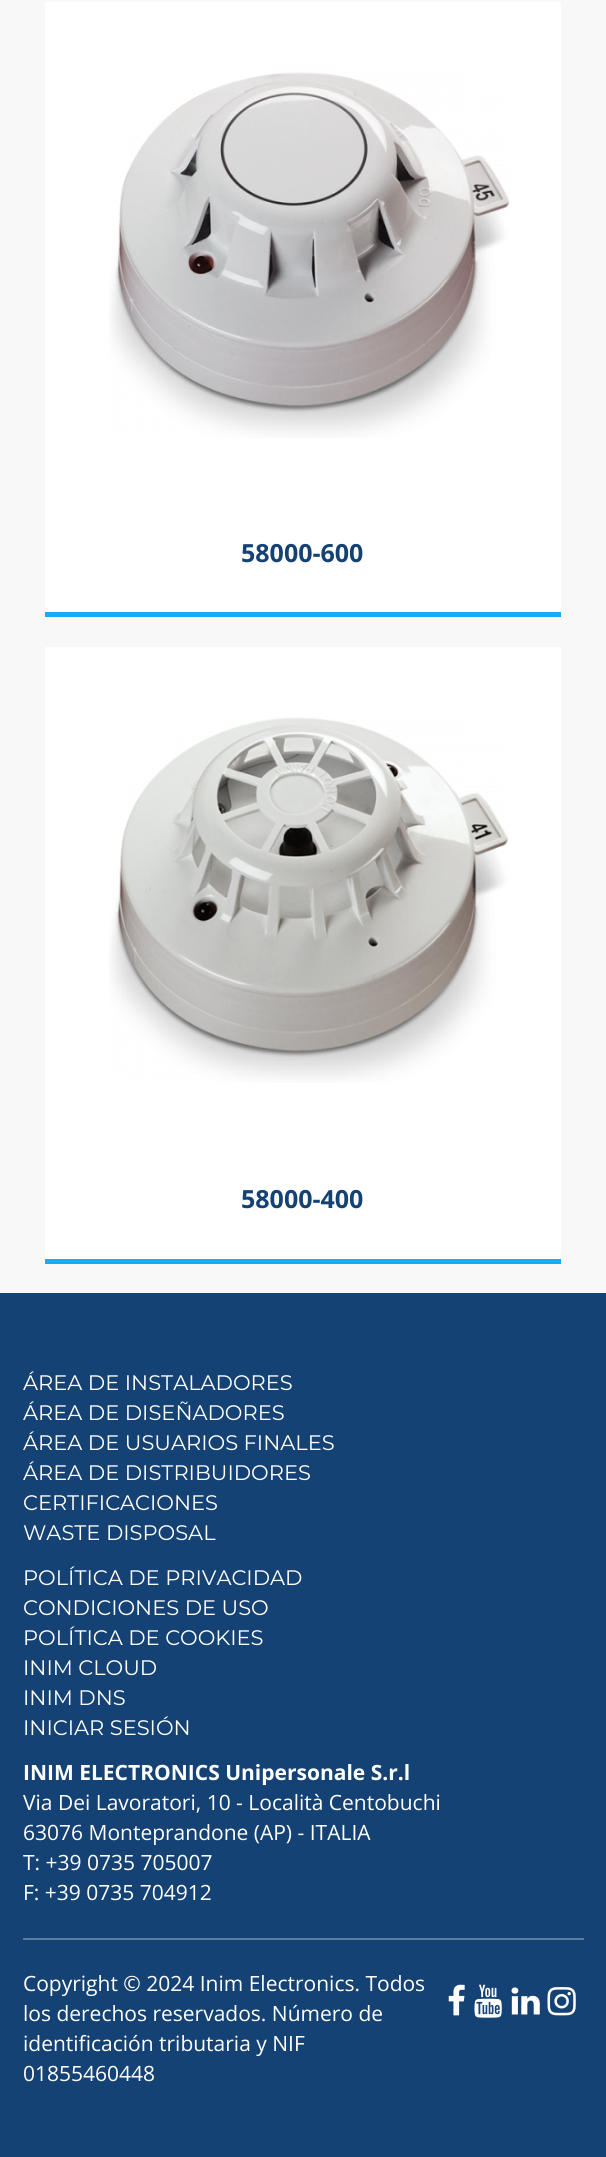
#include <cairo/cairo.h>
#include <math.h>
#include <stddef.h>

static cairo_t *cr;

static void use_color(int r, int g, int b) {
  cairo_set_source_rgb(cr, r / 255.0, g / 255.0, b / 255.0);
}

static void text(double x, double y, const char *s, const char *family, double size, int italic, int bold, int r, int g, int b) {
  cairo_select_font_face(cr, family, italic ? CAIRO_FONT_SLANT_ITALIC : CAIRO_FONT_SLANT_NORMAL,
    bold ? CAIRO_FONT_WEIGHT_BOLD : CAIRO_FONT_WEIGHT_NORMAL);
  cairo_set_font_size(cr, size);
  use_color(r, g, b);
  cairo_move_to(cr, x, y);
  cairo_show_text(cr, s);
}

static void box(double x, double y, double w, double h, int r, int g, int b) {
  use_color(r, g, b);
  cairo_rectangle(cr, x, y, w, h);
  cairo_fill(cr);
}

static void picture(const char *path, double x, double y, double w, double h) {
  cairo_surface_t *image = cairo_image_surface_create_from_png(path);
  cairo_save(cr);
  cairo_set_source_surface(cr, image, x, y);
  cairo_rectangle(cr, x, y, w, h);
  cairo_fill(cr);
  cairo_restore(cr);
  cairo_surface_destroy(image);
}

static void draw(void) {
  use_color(248, 248, 248);
  cairo_paint(cr);
  box(45, 2, 516, 610, 255, 255, 255);
  box(45, 612, 516, 5, 25, 170, 246);
  picture("img_01.png", 109, 72, 401, 366);
  box(45, 647, 516, 612, 255, 255, 255);
  box(45, 1259, 516, 5, 25, 170, 246);
  picture("img_02.png", 109, 717, 400, 366);
  box(0, 1293, 606, 864, 21, 66, 117);
  box(23, 1938, 561, 2, 92, 123, 159);
  picture("img_03.png", 448, 1984, 17, 32);
  picture("img_04.png", 474, 1984, 28, 34);
  picture("img_05.png", 511, 1987, 29, 28);
  picture("img_06.png", 547, 1987, 29, 29);
  text(241, 562, "58000-600", "Open Sans", 25, 0, 1, 21, 66, 117);
  text(241, 1208, "58000-400", "Open Sans", 25, 0, 1, 21, 66, 117);
  text(23, 1390, "ÁREA DE INSTALADORES", "Montserrat", 21, 0, 0, 255, 255, 255);
  text(23, 1420, "ÁREA DE DISEÑADORES", "Montserrat", 21, 0, 0, 255, 255, 255);
  text(23, 1450, "ÁREA DE USUARIOS FINALES", "Montserrat", 21, 0, 0, 255, 255, 255);
  text(23, 1480, "ÁREA DE DISTRIBUIDORES", "Montserrat", 21, 0, 0, 255, 255, 255);
  text(23, 1510, "CERTIFICACIONES", "Montserrat", 21, 0, 0, 255, 255, 255);
  text(23, 1540, "WASTE DISPOSAL", "Montserrat", 21, 0, 0, 255, 255, 255);
  text(23, 1585, "POLÍTICA DE PRIVACIDAD", "Montserrat", 21, 0, 0, 255, 255, 255);
  text(23, 1615, "CONDICIONES DE USO", "Montserrat", 21, 0, 0, 255, 255, 255);
  text(23, 1645, "POLÍTICA DE COOKIES", "Montserrat", 21, 0, 0, 255, 255, 255);
  text(23, 1675, "INIM CLOUD", "Montserrat", 21, 0, 0, 255, 255, 255);
  text(23, 1705, "INIM DNS", "Montserrat", 21, 0, 0, 255, 255, 255);
  text(23, 1735, "INICIAR SESIÓN", "Montserrat", 21, 0, 0, 255, 255, 255);
  text(23, 1780, "INIM ELECTRONICS Unipersonale S.r.l", "Open Sans", 21, 0, 1, 255, 255, 255);
  text(23, 1810, "Via Dei Lavoratori, 10 - Località Centobuchi", "Open Sans", 21, 0, 0, 255, 255, 255);
  text(23, 1840, "63076 Monteprandone (AP) - ITALIA", "Open Sans", 21, 0, 0, 255, 255, 255);
  text(23, 1870, "T: +39 0735 705007", "Open Sans", 21, 0, 0, 255, 255, 255);
  text(23, 1900, "F: +39 0735 704912", "Open Sans", 21, 0, 0, 255, 255, 255);
  text(23, 1991, "Copyright © 2024 Inim Electronics. Todos", "Open Sans", 21, 0, 0, 255, 255, 255);
  text(23, 2021, "los derechos reservados. Número de", "Open Sans", 21, 0, 0, 255, 255, 255);
  text(23, 2051, "identificación tributaria y NIF", "Open Sans", 21, 0, 0, 255, 255, 255);
  text(23, 2081, "01855460448", "Open Sans", 21, 0, 0, 255, 255, 255);
}

int main(void) {
  cairo_surface_t *surface = cairo_image_surface_create(CAIRO_FORMAT_RGB24, 606, 2157);
  cr = cairo_create(surface);
  cairo_font_options_t *options = cairo_font_options_create();
  cairo_font_options_set_hint_metrics(options, CAIRO_HINT_METRICS_OFF);
  cairo_font_options_set_hint_style(options, CAIRO_HINT_STYLE_NONE);
  cairo_set_font_options(cr, options);
  cairo_set_miter_limit(cr, 4);
  draw();
  cairo_surface_write_to_png(surface, "out.png");
  cairo_font_options_destroy(options);
  cairo_destroy(cr);
  cairo_surface_destroy(surface);
  return 0;
}
